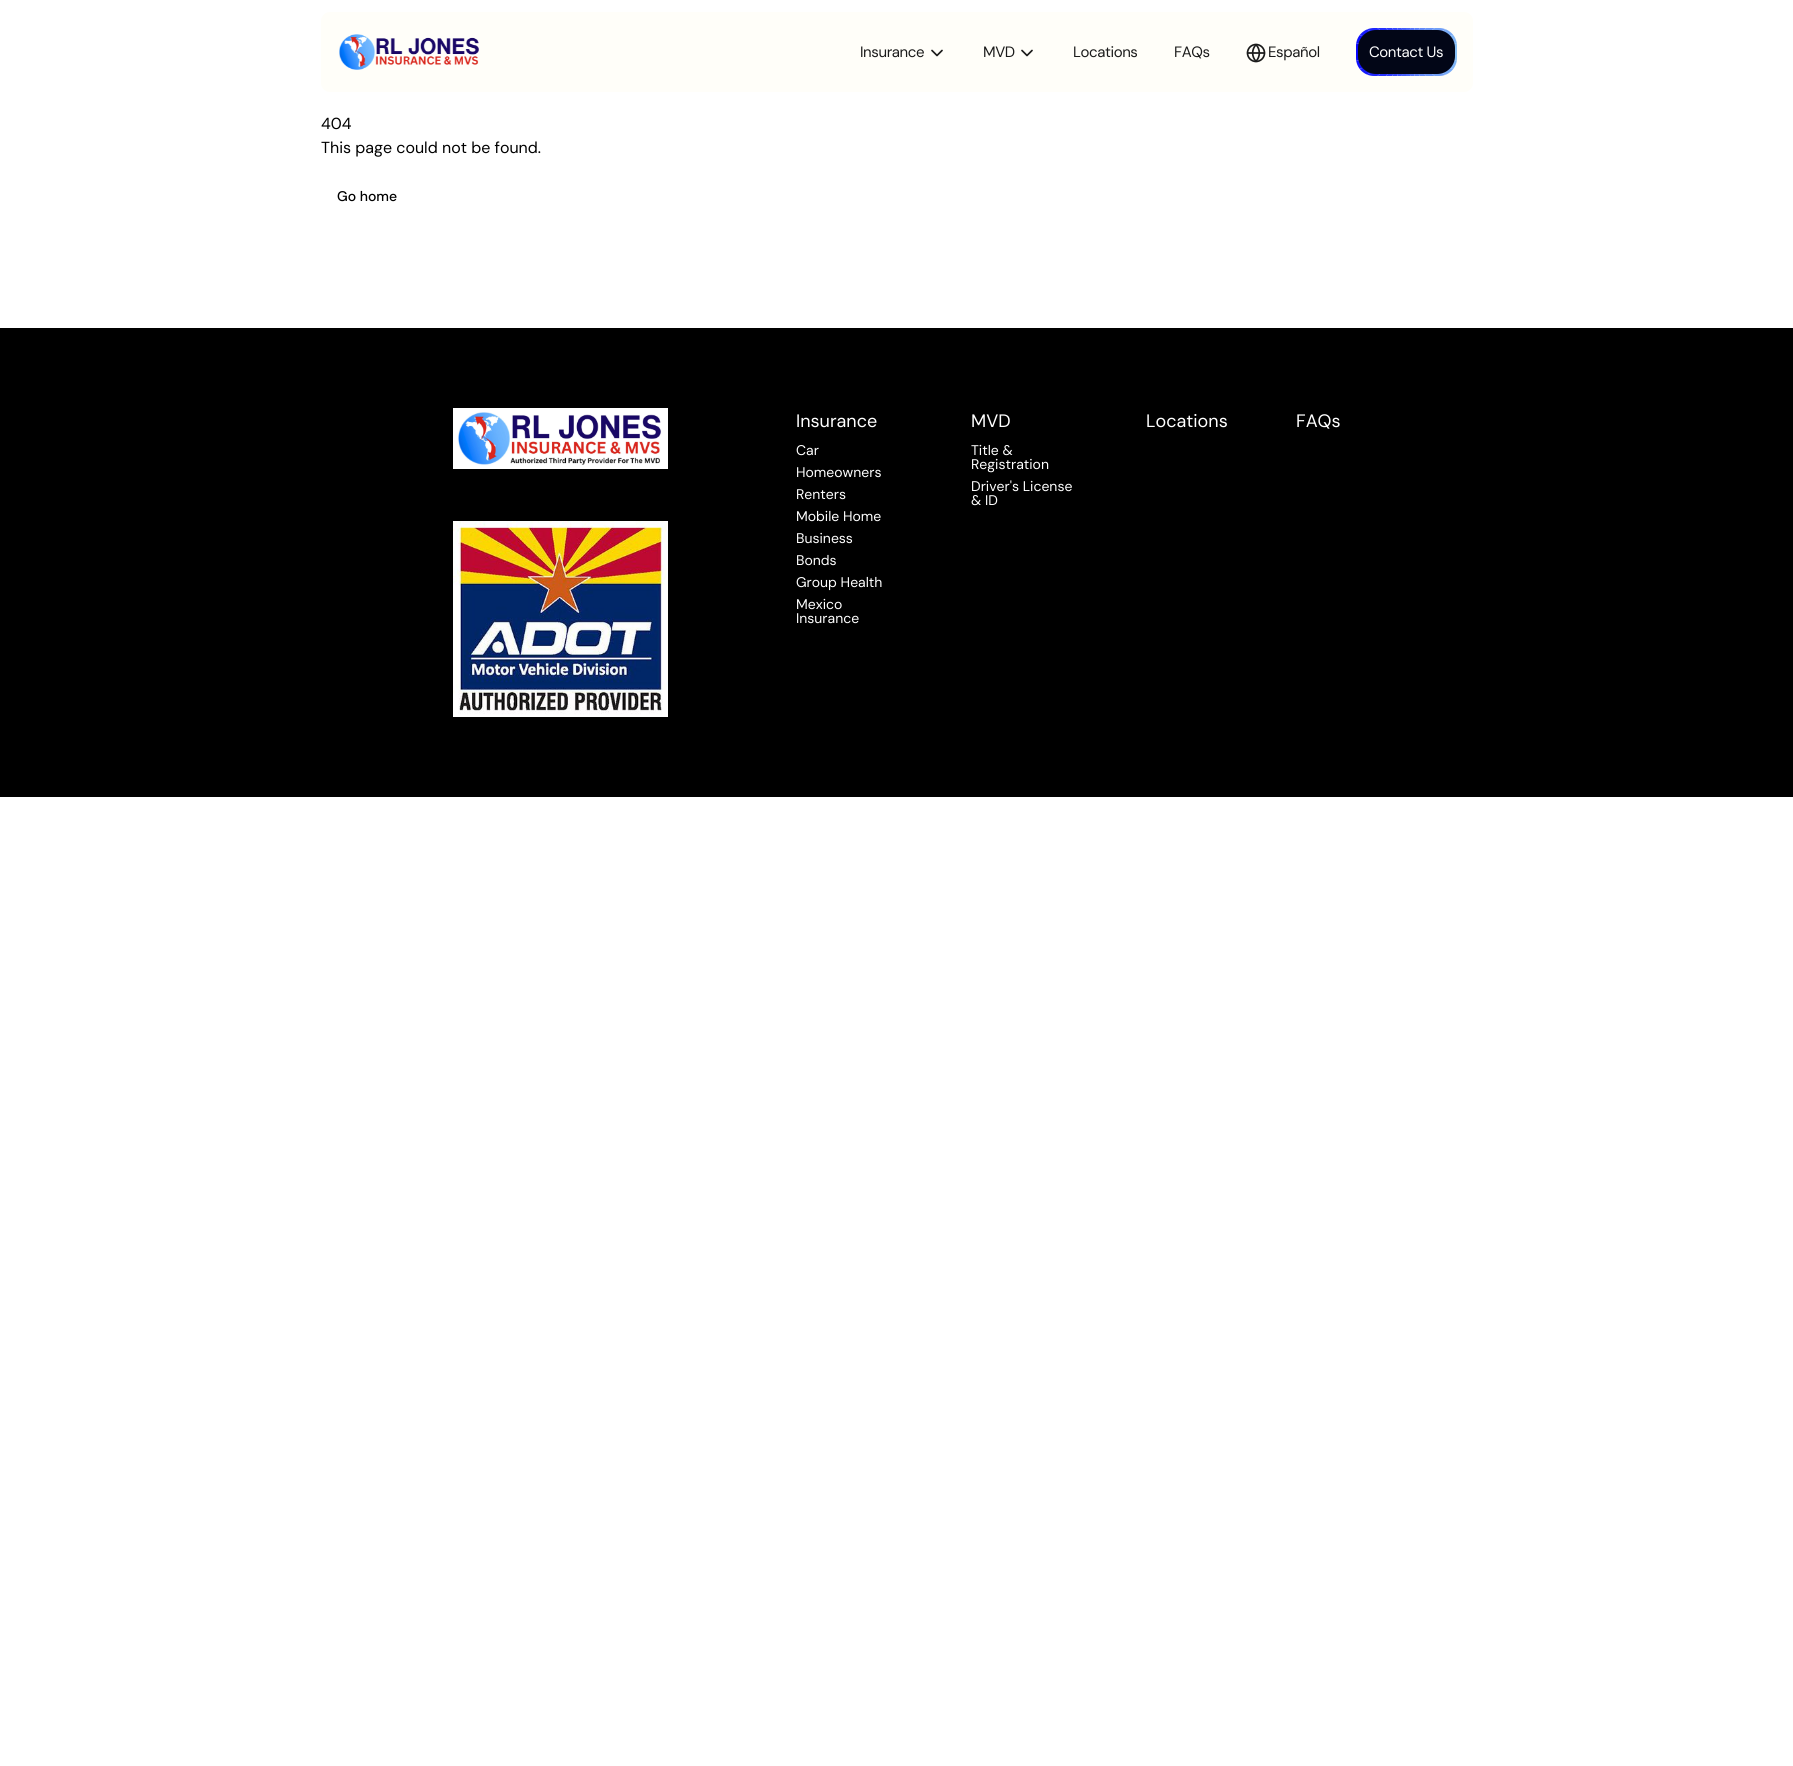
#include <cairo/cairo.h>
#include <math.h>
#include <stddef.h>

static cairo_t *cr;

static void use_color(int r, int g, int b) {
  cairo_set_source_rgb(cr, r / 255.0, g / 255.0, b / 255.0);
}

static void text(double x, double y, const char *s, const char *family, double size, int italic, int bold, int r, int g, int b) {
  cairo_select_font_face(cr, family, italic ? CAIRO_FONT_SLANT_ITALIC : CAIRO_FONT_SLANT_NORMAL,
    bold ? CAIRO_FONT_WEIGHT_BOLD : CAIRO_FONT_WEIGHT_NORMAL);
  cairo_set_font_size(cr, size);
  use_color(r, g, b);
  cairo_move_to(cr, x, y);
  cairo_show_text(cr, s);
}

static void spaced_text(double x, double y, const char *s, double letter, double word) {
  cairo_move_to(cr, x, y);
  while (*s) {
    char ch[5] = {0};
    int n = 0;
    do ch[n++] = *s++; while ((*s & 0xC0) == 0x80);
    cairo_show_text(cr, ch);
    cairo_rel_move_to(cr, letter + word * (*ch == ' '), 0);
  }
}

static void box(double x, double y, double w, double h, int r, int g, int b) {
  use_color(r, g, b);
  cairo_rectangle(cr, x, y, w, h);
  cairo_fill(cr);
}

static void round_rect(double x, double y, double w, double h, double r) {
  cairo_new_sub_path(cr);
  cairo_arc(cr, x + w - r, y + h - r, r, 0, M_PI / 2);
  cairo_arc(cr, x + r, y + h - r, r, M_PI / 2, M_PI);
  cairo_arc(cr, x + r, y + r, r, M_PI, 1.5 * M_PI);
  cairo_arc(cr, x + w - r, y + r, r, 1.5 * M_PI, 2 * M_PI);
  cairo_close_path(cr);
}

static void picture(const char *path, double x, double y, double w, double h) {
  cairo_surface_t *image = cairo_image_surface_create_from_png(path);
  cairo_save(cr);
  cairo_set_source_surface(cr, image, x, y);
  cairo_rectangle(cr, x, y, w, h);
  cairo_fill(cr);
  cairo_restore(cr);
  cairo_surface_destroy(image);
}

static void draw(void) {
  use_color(255, 255, 255);
  cairo_paint(cr);
  use_color(255, 254, 249);
  round_rect(321, 12, 1152, 80, 9);
  cairo_fill(cr);
  picture("img_01.png", 339, 34, 141, 36);
  cairo_new_path(cr);
  cairo_move_to(cr, 932, 50.5);
  cairo_line_to(cr, 937, 55.5);
  cairo_line_to(cr, 942, 50.5);
  use_color(27, 27, 27);
  cairo_set_line_width(cr, 1.7);
  cairo_set_line_cap(cr, CAIRO_LINE_CAP_ROUND);
  cairo_set_line_join(cr, CAIRO_LINE_JOIN_ROUND);
  cairo_stroke(cr);
  cairo_new_path(cr);
  cairo_move_to(cr, 1022, 50.5);
  cairo_line_to(cr, 1027, 55.5);
  cairo_line_to(cr, 1032, 50.5);
  cairo_stroke(cr);
  picture("img_02.png", 1246, 43, 20, 20);
  picture("img_03.png", 1356, 28, 101, 48);
  use_color(2, 6, 23);
  round_rect(1358, 30, 97, 44, 18);
  cairo_fill(cr);
  box(0, 328, 1793, 469, 0, 0, 0);
  picture("img_04.png", 453, 408, 215, 61);
  picture("img_05.png", 453, 521, 215, 196);
  cairo_select_font_face(cr, "DM Sans", CAIRO_FONT_SLANT_NORMAL, CAIRO_FONT_WEIGHT_NORMAL);
  cairo_set_font_size(cr, 15);
  use_color(27, 27, 27);
  spaced_text(860, 57, "Insurance", -0.4, 0);
  spaced_text(983, 57, "MVD", -0.4, 0);
  spaced_text(1073, 57, "Locations", -0.4, 0);
  spaced_text(1174, 57, "FAQs", -0.4, 0);
  spaced_text(1268, 57, "Español", -0.4, 0);
  use_color(255, 255, 255);
  spaced_text(1369, 57, "Contact Us", -0.4, 0);
  text(321, 129, "404", "DM Sans", 16, 0, 0, 0, 0, 0);
  text(321, 153, "This page could not be found.", "DM Sans", 16, 0, 0, 0, 0, 0);
  text(337, 201, "Go home", "DM Sans Medium", 14, 0, 0, 0, 0, 0);
  text(796, 427, "Insurance", "DM Sans", 18, 0, 0, 255, 255, 255);
  text(796, 455, "Car", "DM Sans", 14, 0, 0, 255, 255, 255);
  text(796, 477, "Homeowners", "DM Sans", 14, 0, 0, 255, 255, 255);
  text(796, 499, "Renters", "DM Sans", 14, 0, 0, 255, 255, 255);
  text(796, 521, "Mobile Home", "DM Sans", 14, 0, 0, 255, 255, 255);
  text(796, 543, "Business", "DM Sans", 14, 0, 0, 255, 255, 255);
  text(796, 565, "Bonds", "DM Sans", 14, 0, 0, 255, 255, 255);
  text(796, 587, "Group Health", "DM Sans", 14, 0, 0, 255, 255, 255);
  text(796, 609, "Mexico", "DM Sans", 14, 0, 0, 255, 255, 255);
  text(796, 623, "Insurance", "DM Sans", 14, 0, 0, 255, 255, 255);
  text(971, 427, "MVD", "DM Sans", 18, 0, 0, 255, 255, 255);
  text(971, 455, "Title &", "DM Sans", 14, 0, 0, 255, 255, 255);
  text(971, 469, "Registration", "DM Sans", 14, 0, 0, 255, 255, 255);
  text(971, 491, "Driver's License", "DM Sans", 14, 0, 0, 255, 255, 255);
  text(971, 505, "& ID", "DM Sans", 14, 0, 0, 255, 255, 255);
  text(1146, 427, "Locations", "DM Sans", 18, 0, 0, 255, 255, 255);
  text(1296, 427, "FAQs", "DM Sans", 18, 0, 0, 255, 255, 255);
}

int main(void) {
  cairo_surface_t *surface = cairo_image_surface_create(CAIRO_FORMAT_RGB24, 1793, 1766);
  cr = cairo_create(surface);
  cairo_font_options_t *options = cairo_font_options_create();
  cairo_font_options_set_hint_metrics(options, CAIRO_HINT_METRICS_OFF);
  cairo_font_options_set_hint_style(options, CAIRO_HINT_STYLE_NONE);
  cairo_set_font_options(cr, options);
  cairo_set_miter_limit(cr, 4);
  draw();
  cairo_surface_write_to_png(surface, "out.png");
  cairo_font_options_destroy(options);
  cairo_destroy(cr);
  cairo_surface_destroy(surface);
  return 0;
}
